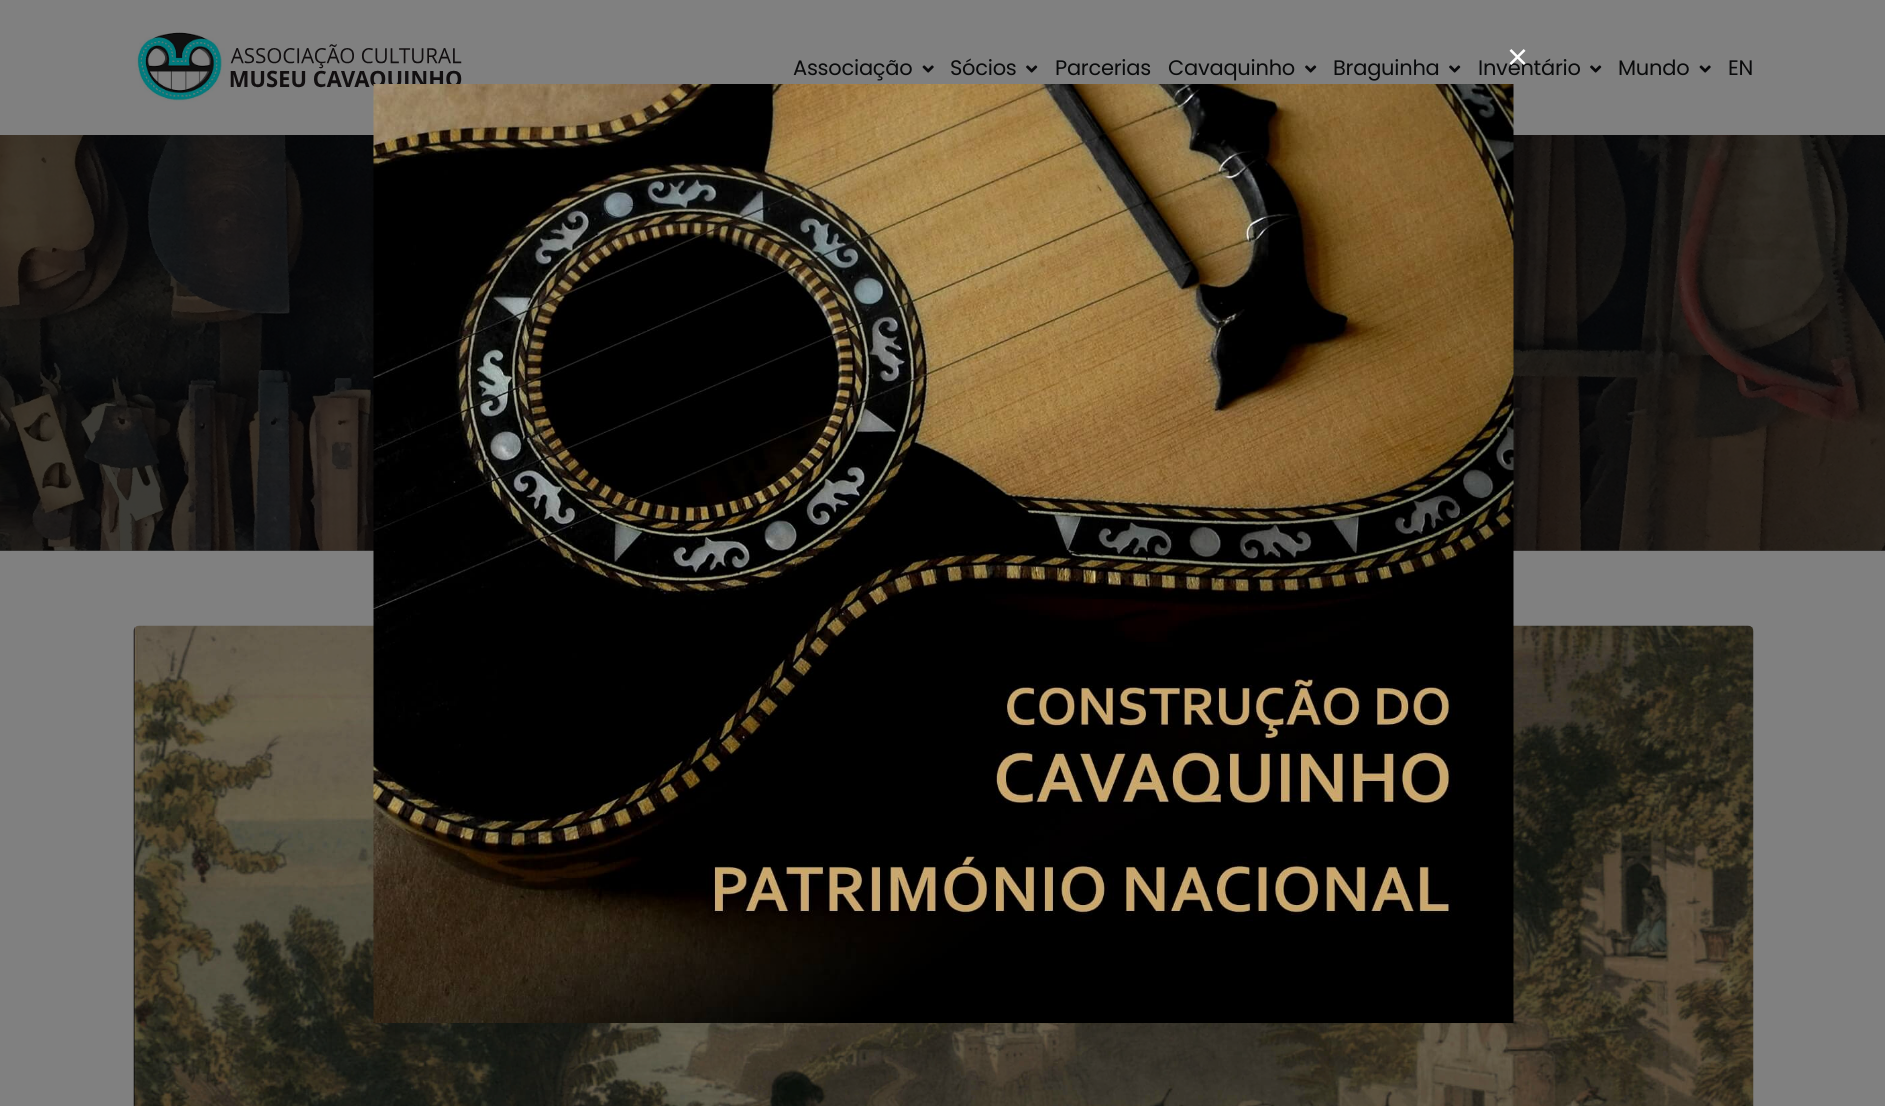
#include <cairo/cairo.h>
#include <math.h>
#include <stddef.h>

static cairo_t *cr;

static void use_color(int r, int g, int b) {
  cairo_set_source_rgb(cr, r / 255.0, g / 255.0, b / 255.0);
}

static void text(double x, double y, const char *s, const char *family, double size, int italic, int bold, int r, int g, int b) {
  cairo_select_font_face(cr, family, italic ? CAIRO_FONT_SLANT_ITALIC : CAIRO_FONT_SLANT_NORMAL,
    bold ? CAIRO_FONT_WEIGHT_BOLD : CAIRO_FONT_WEIGHT_NORMAL);
  cairo_set_font_size(cr, size);
  use_color(r, g, b);
  cairo_move_to(cr, x, y);
  cairo_show_text(cr, s);
}

static void spaced_text(double x, double y, const char *s, double letter, double word) {
  cairo_move_to(cr, x, y);
  while (*s) {
    char ch[5] = {0};
    int n = 0;
    do ch[n++] = *s++; while ((*s & 0xC0) == 0x80);
    cairo_show_text(cr, ch);
    cairo_rel_move_to(cr, letter + word * (*ch == ' '), 0);
  }
}

static void box(double x, double y, double w, double h, int r, int g, int b) {
  use_color(r, g, b);
  cairo_rectangle(cr, x, y, w, h);
  cairo_fill(cr);
}

static void picture(const char *path, double x, double y, double w, double h) {
  cairo_surface_t *image = cairo_image_surface_create_from_png(path);
  cairo_save(cr);
  cairo_set_source_surface(cr, image, x, y);
  cairo_rectangle(cr, x, y, w, h);
  cairo_fill(cr);
  cairo_restore(cr);
  cairo_surface_destroy(image);
}

static void draw(void) {
  use_color(128, 128, 128);
  cairo_paint(cr);
  box(0, 550, 1885, 1, 64, 64, 64);
  picture("img_02.png", 135, 32, 327, 70);
  picture("img_05.png", 0, 135, 1885, 416);
  picture("img_06.png", 133, 625, 1621, 481);
  picture("img_01.png", 373, 84, 1141, 939);
  picture("img_03.png", 922, 65, 12, 8);
  picture("img_04.png", 1026, 65, 12, 8);
  picture("img_04.png", 1305, 65, 12, 8);
  picture("img_04.png", 1449, 65, 12, 8);
  picture("img_04.png", 1590, 65, 12, 8);
  picture("img_03.png", 1699, 65, 12, 8);
  cairo_select_font_face(cr, "Poppins", CAIRO_FONT_SLANT_NORMAL, CAIRO_FONT_WEIGHT_NORMAL);
  cairo_set_font_size(cr, 21);
  use_color(10, 11, 12);
  spaced_text(793, 75, "Associação", -0.25, 0);
  spaced_text(950, 75, "Sócios", -0.25, 0);
  spaced_text(1055, 75, "Parcerias", -0.25, 0);
  spaced_text(1168, 75, "Cavaquinho", -0.25, 0);
  spaced_text(1333, 75, "Braguinha", -0.25, 0);
  spaced_text(1478, 75, "Inventário", -0.25, 0);
  text(1507, 69, "×", "Liberation Sans", 36, 0, 0, 255, 255, 255);
  cairo_select_font_face(cr, "Poppins", CAIRO_FONT_SLANT_NORMAL, CAIRO_FONT_WEIGHT_NORMAL);
  cairo_set_font_size(cr, 21);
  use_color(10, 11, 12);
  spaced_text(1618, 75, "Mundo", -0.25, 0);
  spaced_text(1728, 75, "EN", -0.25, 0);
}

int main(void) {
  cairo_surface_t *surface = cairo_image_surface_create(CAIRO_FORMAT_RGB24, 1885, 1106);
  cr = cairo_create(surface);
  cairo_font_options_t *options = cairo_font_options_create();
  cairo_font_options_set_hint_metrics(options, CAIRO_HINT_METRICS_OFF);
  cairo_font_options_set_hint_style(options, CAIRO_HINT_STYLE_NONE);
  cairo_set_font_options(cr, options);
  cairo_set_miter_limit(cr, 4);
  draw();
  cairo_surface_write_to_png(surface, "out.png");
  cairo_font_options_destroy(options);
  cairo_destroy(cr);
  cairo_surface_destroy(surface);
  return 0;
}
